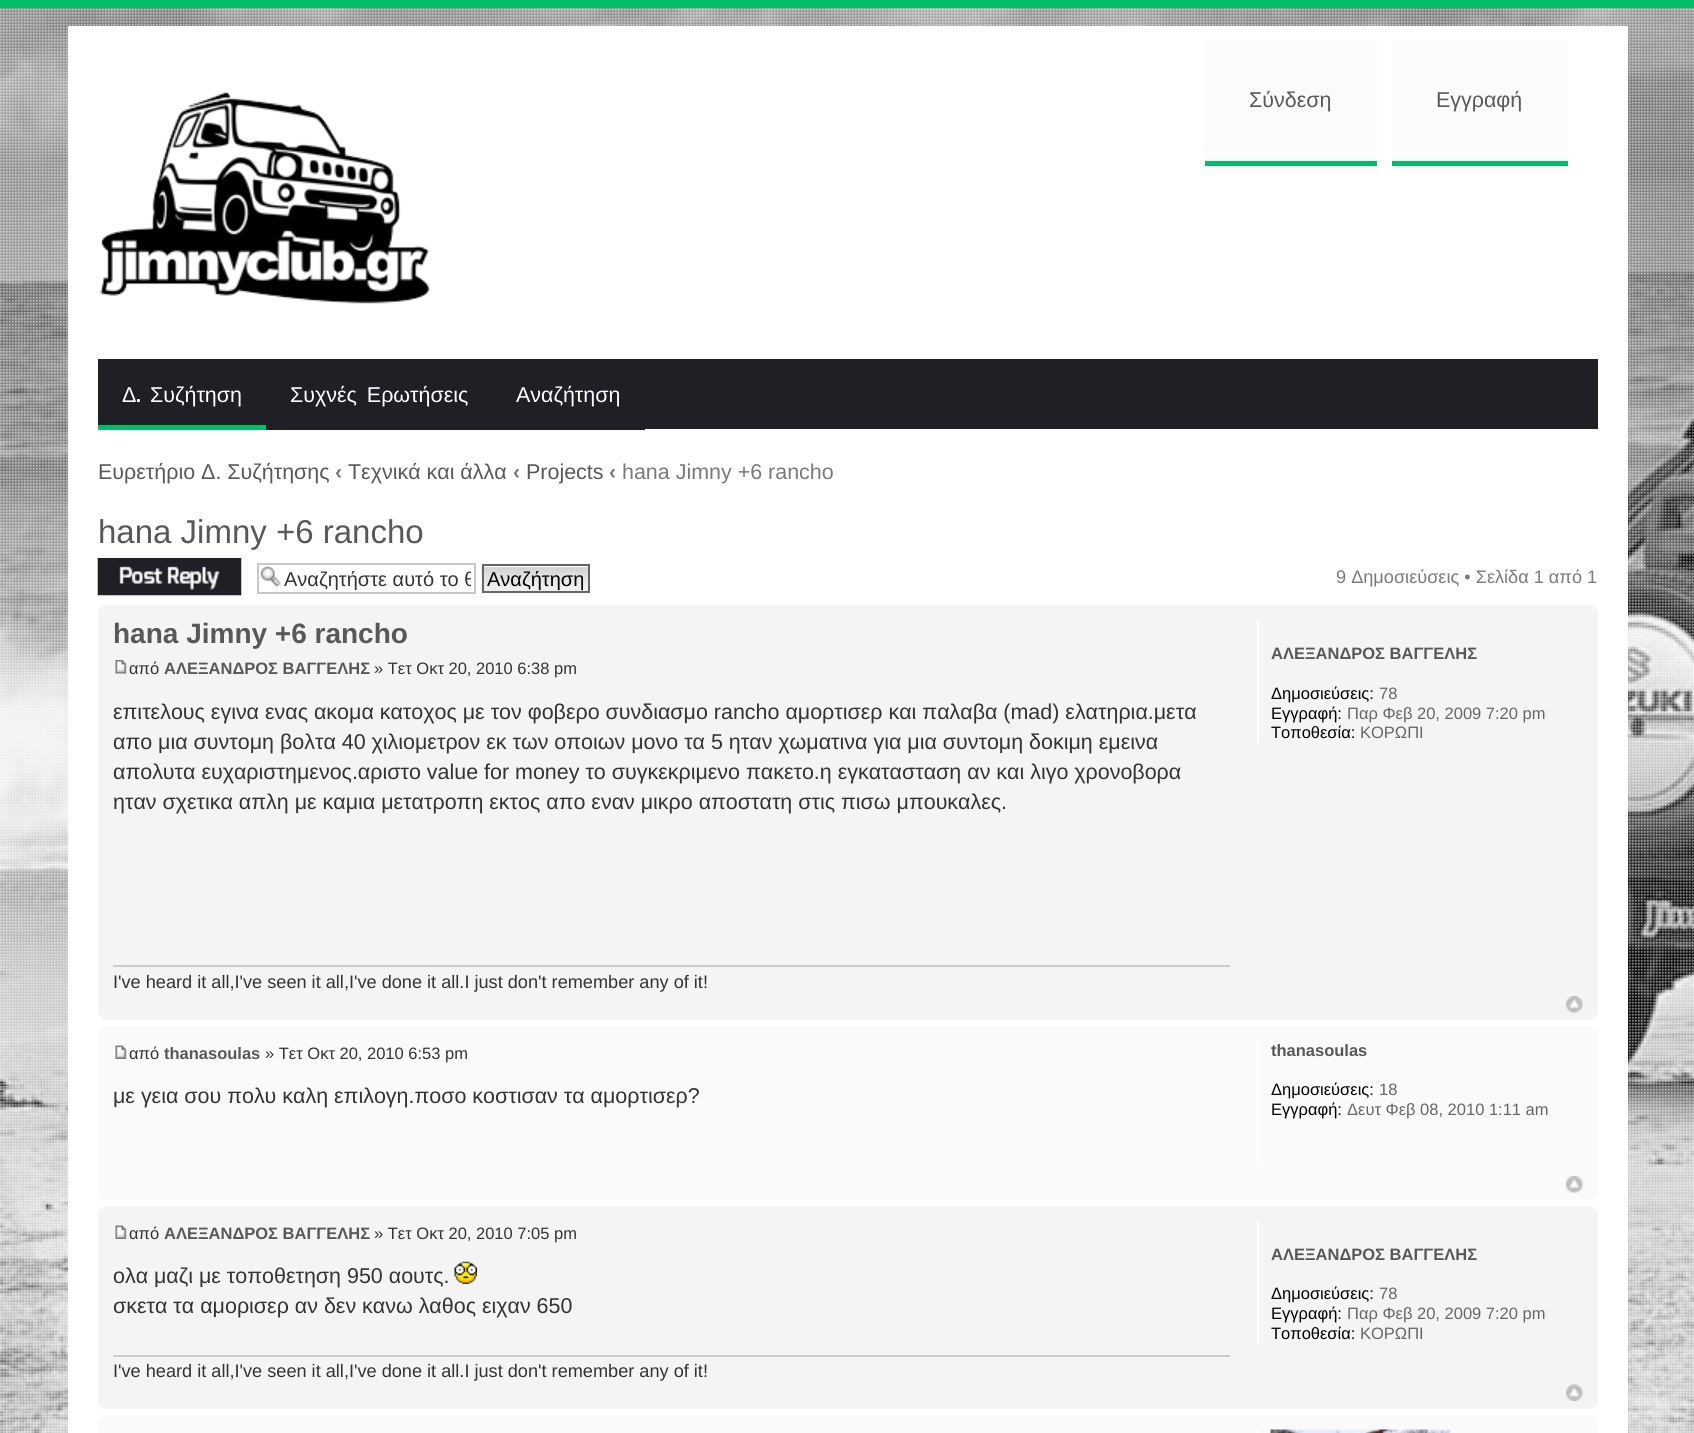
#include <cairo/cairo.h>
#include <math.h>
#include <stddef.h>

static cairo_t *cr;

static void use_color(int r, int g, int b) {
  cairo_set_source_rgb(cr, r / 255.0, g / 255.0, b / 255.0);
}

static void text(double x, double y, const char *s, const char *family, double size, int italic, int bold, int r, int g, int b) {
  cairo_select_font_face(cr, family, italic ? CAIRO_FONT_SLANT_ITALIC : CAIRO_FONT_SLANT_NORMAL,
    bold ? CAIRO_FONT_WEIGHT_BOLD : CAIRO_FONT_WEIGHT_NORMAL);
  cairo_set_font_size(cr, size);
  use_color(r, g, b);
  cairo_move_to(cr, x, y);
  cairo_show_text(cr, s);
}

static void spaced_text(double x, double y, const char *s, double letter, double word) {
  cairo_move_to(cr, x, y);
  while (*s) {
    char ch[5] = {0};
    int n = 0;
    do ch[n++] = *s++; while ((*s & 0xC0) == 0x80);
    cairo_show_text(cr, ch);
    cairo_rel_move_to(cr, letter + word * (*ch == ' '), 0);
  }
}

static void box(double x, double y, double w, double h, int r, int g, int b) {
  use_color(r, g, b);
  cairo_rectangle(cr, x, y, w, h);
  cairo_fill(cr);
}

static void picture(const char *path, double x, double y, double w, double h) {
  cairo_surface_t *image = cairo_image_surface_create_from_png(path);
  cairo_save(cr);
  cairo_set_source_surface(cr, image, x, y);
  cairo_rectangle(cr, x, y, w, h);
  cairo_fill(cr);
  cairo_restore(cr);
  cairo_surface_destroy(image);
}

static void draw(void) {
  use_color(255, 255, 255);
  cairo_paint(cr);
  picture("img_01.png", 0, 8, 1694, 1425);
  picture("img_02.png", 0, 8, 1694, 1425);
  box(0, 0, 1694, 8, 1, 189, 105);
  box(68, 26, 1560, 1407, 255, 255, 255);
  picture("img_03.png", 100, 91, 330, 213);
  box(1205, 41, 172, 120, 251, 251, 251);
  box(1205, 161, 172, 5, 1, 189, 105);
  box(1392, 41, 176, 120, 251, 251, 251);
  box(1392, 161, 176, 5, 1, 189, 105);
  box(98, 359, 1500, 70, 30, 32, 37);
  box(98, 425, 168, 5, 1, 189, 105);
  box(266, 429, 379, 1, 30, 32, 37);
  picture("img_04.png", 97, 558, 145, 38);
  picture("img_05.png", 260, 566, 21, 21);
  cairo_rectangle(cr, 258, 564, 217, 29);
  use_color(199, 199, 199);
  cairo_stroke(cr);
  picture("img_06.png", 481, 566, 107, 27);
  cairo_rectangle(cr, 483, 565, 106, 27);
  use_color(102, 102, 102);
  cairo_stroke(cr);
  box(98, 605, 1500, 415, 244, 244, 244);
  picture("img_07.png", 98, 605, 5, 5);
  picture("img_08.png", 1592, 605, 6, 5);
  picture("img_09.png", 115, 660, 12, 14);
  box(113, 965, 1117, 2, 204, 204, 204);
  box(1257, 620, 2, 123, 255, 255, 255);
  picture("img_10.png", 1566, 996, 17, 17);
  picture("img_11.png", 98, 1014, 6, 6);
  picture("img_12.png", 1591, 1014, 7, 6);
  box(98, 1026, 1500, 174, 249, 250, 249);
  picture("img_13.png", 98, 1026, 4, 5);
  picture("img_14.png", 1593, 1026, 4, 4);
  picture("img_15.png", 115, 1045, 12, 14);
  box(1257, 1041, 2, 120, 255, 255, 255);
  picture("img_16.png", 1566, 1176, 17, 17);
  picture("img_17.png", 98, 1195, 4, 5);
  picture("img_18.png", 1593, 1196, 4, 4);
  box(98, 1206, 1500, 203, 244, 244, 244);
  picture("img_19.png", 98, 1206, 6, 6);
  picture("img_20.png", 1591, 1206, 7, 6);
  picture("img_21.png", 115, 1225, 12, 14);
  picture("img_22.png", 454, 1261, 23, 23);
  box(113, 1355, 1117, 2, 204, 204, 204);
  box(1257, 1221, 2, 123, 255, 255, 255);
  picture("img_23.png", 1566, 1384, 17, 17);
  picture("img_24.png", 98, 1403, 5, 6);
  picture("img_25.png", 1592, 1403, 6, 6);
  box(98, 1415, 1500, 18, 249, 250, 249);
  picture("img_26.png", 98, 1415, 4, 4);
  picture("img_27.png", 1593, 1415, 4, 4);
  box(1257, 1430, 2, 3, 255, 255, 255);
  picture("img_28.png", 1270, 1429, 181, 4);
  text(1249, 107, "Σύνδεση", "Liberation Sans", 21.45, 0, 0, 88, 88, 88);
  text(1436, 107, "Εγγραφή", "Liberation Sans", 21.45, 0, 0, 88, 88, 88);
  text(122, 402, "Δ", "Liberation Sans", 21.45, 0, 0, 255, 255, 255);
  text(136, 402, ".", "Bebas", 21.45, 0, 0, 255, 255, 255);
  text(150, 402, "Συζήτηση", "Liberation Sans", 21.45, 0, 0, 255, 255, 255);
  spaced_text(290, 402, "Συχνές Ερωτήσεις", 0, 4);
  text(516, 402, "Αναζήτηση", "Liberation Sans", 21.45, 0, 0, 255, 255, 255);
  text(98, 479, "Ευρετήριο Δ. Συζήτησης", "Liberation Sans", 21.45, 0, 0, 88, 88, 88);
  text(335, 479, "‹", "Liberation Sans", 21.45, 0, 1, 121, 121, 121);
  text(348, 479, "Τεχνικά και άλλα", "Liberation Sans", 21.45, 0, 0, 88, 88, 88);
  text(513, 479, "‹", "Liberation Sans", 21.45, 0, 1, 121, 121, 121);
  text(526, 479, "Projects", "Liberation Sans", 21.45, 0, 0, 88, 88, 88);
  text(609, 479, "‹", "Liberation Sans", 21.45, 0, 1, 121, 121, 121);
  text(622, 479, "hana Jimny +6 rancho", "Liberation Sans", 21.45, 0, 0, 121, 121, 121);
  text(98, 543, "hana Jimny +6 rancho", "Liberation Sans", 33, 0, 0, 88, 88, 88);
  cairo_save(cr);
  cairo_rectangle(cr, 284, 567, 187, 23);
  cairo_clip(cr);
  text(284, 586, "Αναζητήστε αυτό το θ", "Liberation Sans", 20, 0, 0, 51, 51, 51);
  cairo_restore(cr);
  text(487, 586, "Αναζήτηση", "Liberation Sans", 20, 0, 0, 0, 0, 0);
  text(1336, 583, "9 Δημοσιεύσεις • Σελίδα 1 από 1", "Liberation Sans", 18.15, 0, 0, 121, 121, 121);
  text(113, 643, "hana Jimny +6 rancho", "Liberation Sans", 28, 0, 1, 88, 88, 88);
  text(129, 674, "από", "Liberation Sans", 16.5, 0, 0, 51, 51, 51);
  text(164, 674, "ΑΛΕΞΑΝΔΡΟΣ ΒΑΓΓΕΛΗΣ", "Liberation Sans", 16.5, 0, 1, 88, 88, 88);
  text(374, 674, "» Τετ Οκτ 20, 2010 6:38 pm", "Liberation Sans", 16.5, 0, 0, 51, 51, 51);
  text(113, 719, "επιτελους εγινα ενας ακομα κατοχος με τον φοβερο συνδιασμο rancho αμορτισερ και παλαβα (mad) ελατηρια.μετα", "Liberation Sans", 21.45, 0, 0, 51, 51, 51);
  text(113, 749, "απο μια συντομη βολτα 40 χιλιομετρον εκ των οποιων μονο τα 5 ηταν χωματινα για μια συντομη δοκιμη εμεινα", "Liberation Sans", 21.45, 0, 0, 51, 51, 51);
  text(113, 779, "απολυτα ευχαριστημενος.αριστο value for money το συγκεκριμενο πακετο.η εγκατασταση αν και λιγο χρονοβορα", "Liberation Sans", 21.45, 0, 0, 51, 51, 51);
  text(113, 809, "ηταν σχετικα απλη με καμια μετατροπη εκτος απο εναν μικρο αποστατη στις πισω μπουκαλες.", "Liberation Sans", 21.45, 0, 0, 51, 51, 51);
  text(113, 988, "I've heard it all,I've seen it all,I've done it all.I just don't remember any of it!", "Liberation Sans", 18.15, 0, 0, 51, 51, 51);
  text(1271, 659, "ΑΛΕΞΑΝΔΡΟΣ ΒΑΓΓΕΛΗΣ", "Liberation Sans", 16.5, 0, 1, 88, 88, 88);
  text(1271, 699, "Δημοσιεύσεις:", "Liberation Sans", 16.5, 0, 0, 0, 0, 0);
  text(1379, 699, "78", "Liberation Sans", 16.5, 0, 0, 102, 102, 102);
  text(1271, 719, "Εγγραφή:", "Liberation Sans", 16.5, 0, 0, 0, 0, 0);
  text(1347, 719, "Παρ Φεβ 20, 2009 7:20 pm", "Liberation Sans", 16.5, 0, 0, 102, 102, 102);
  text(1271, 738, "Τοποθεσία:", "Liberation Sans", 16.5, 0, 0, 0, 0, 0);
  text(1360, 738, "ΚΟΡΩΠΙ", "Liberation Sans", 16.5, 0, 0, 102, 102, 102);
  text(129, 1059, "από", "Liberation Sans", 16.5, 0, 0, 51, 51, 51);
  text(164, 1059, "thanasoulas", "Liberation Sans", 16.5, 0, 1, 88, 88, 88);
  text(265, 1059, "» Τετ Οκτ 20, 2010 6:53 pm", "Liberation Sans", 16.5, 0, 0, 51, 51, 51);
  text(113, 1103, "με γεια σου πολυ καλη επιλογη.ποσο κοστισαν τα αμορτισερ?", "Liberation Sans", 21.45, 0, 0, 51, 51, 51);
  text(1271, 1056, "thanasoulas", "Liberation Sans", 16.5, 0, 1, 88, 88, 88);
  text(1271, 1095, "Δημοσιεύσεις:", "Liberation Sans", 16.5, 0, 0, 0, 0, 0);
  text(1379, 1095, "18", "Liberation Sans", 16.5, 0, 0, 102, 102, 102);
  text(1271, 1115, "Εγγραφή:", "Liberation Sans", 16.5, 0, 0, 0, 0, 0);
  text(1347, 1115, "Δευτ Φεβ 08, 2010 1:11 am", "Liberation Sans", 16.5, 0, 0, 102, 102, 102);
  text(129, 1239, "από", "Liberation Sans", 16.5, 0, 0, 51, 51, 51);
  text(164, 1239, "ΑΛΕΞΑΝΔΡΟΣ ΒΑΓΓΕΛΗΣ", "Liberation Sans", 16.5, 0, 1, 88, 88, 88);
  text(374, 1239, "» Τετ Οκτ 20, 2010 7:05 pm", "Liberation Sans", 16.5, 0, 0, 51, 51, 51);
  text(113, 1283, "ολα μαζι με τοποθετηση 950 αουτς.", "Liberation Sans", 21.45, 0, 0, 51, 51, 51);
  text(113, 1313, "σκετα τα αμορισερ αν δεν κανω λαθος ειχαν 650", "Liberation Sans", 21.45, 0, 0, 51, 51, 51);
  text(113, 1377, "I've heard it all,I've seen it all,I've done it all.I just don't remember any of it!", "Liberation Sans", 18.15, 0, 0, 51, 51, 51);
  text(1271, 1260, "ΑΛΕΞΑΝΔΡΟΣ ΒΑΓΓΕΛΗΣ", "Liberation Sans", 16.5, 0, 1, 88, 88, 88);
  text(1271, 1299, "Δημοσιεύσεις:", "Liberation Sans", 16.5, 0, 0, 0, 0, 0);
  text(1379, 1299, "78", "Liberation Sans", 16.5, 0, 0, 102, 102, 102);
  text(1271, 1319, "Εγγραφή:", "Liberation Sans", 16.5, 0, 0, 0, 0, 0);
  text(1347, 1319, "Παρ Φεβ 20, 2009 7:20 pm", "Liberation Sans", 16.5, 0, 0, 102, 102, 102);
  text(1271, 1339, "Τοποθεσία:", "Liberation Sans", 16.5, 0, 0, 0, 0, 0);
  text(1360, 1339, "ΚΟΡΩΠΙ", "Liberation Sans", 16.5, 0, 0, 102, 102, 102);
}

int main(void) {
  cairo_surface_t *surface = cairo_image_surface_create(CAIRO_FORMAT_RGB24, 1694, 1433);
  cr = cairo_create(surface);
  cairo_font_options_t *options = cairo_font_options_create();
  cairo_font_options_set_hint_metrics(options, CAIRO_HINT_METRICS_OFF);
  cairo_font_options_set_hint_style(options, CAIRO_HINT_STYLE_NONE);
  cairo_set_font_options(cr, options);
  cairo_set_miter_limit(cr, 4);
  draw();
  cairo_surface_write_to_png(surface, "out.png");
  cairo_font_options_destroy(options);
  cairo_destroy(cr);
  cairo_surface_destroy(surface);
  return 0;
}
